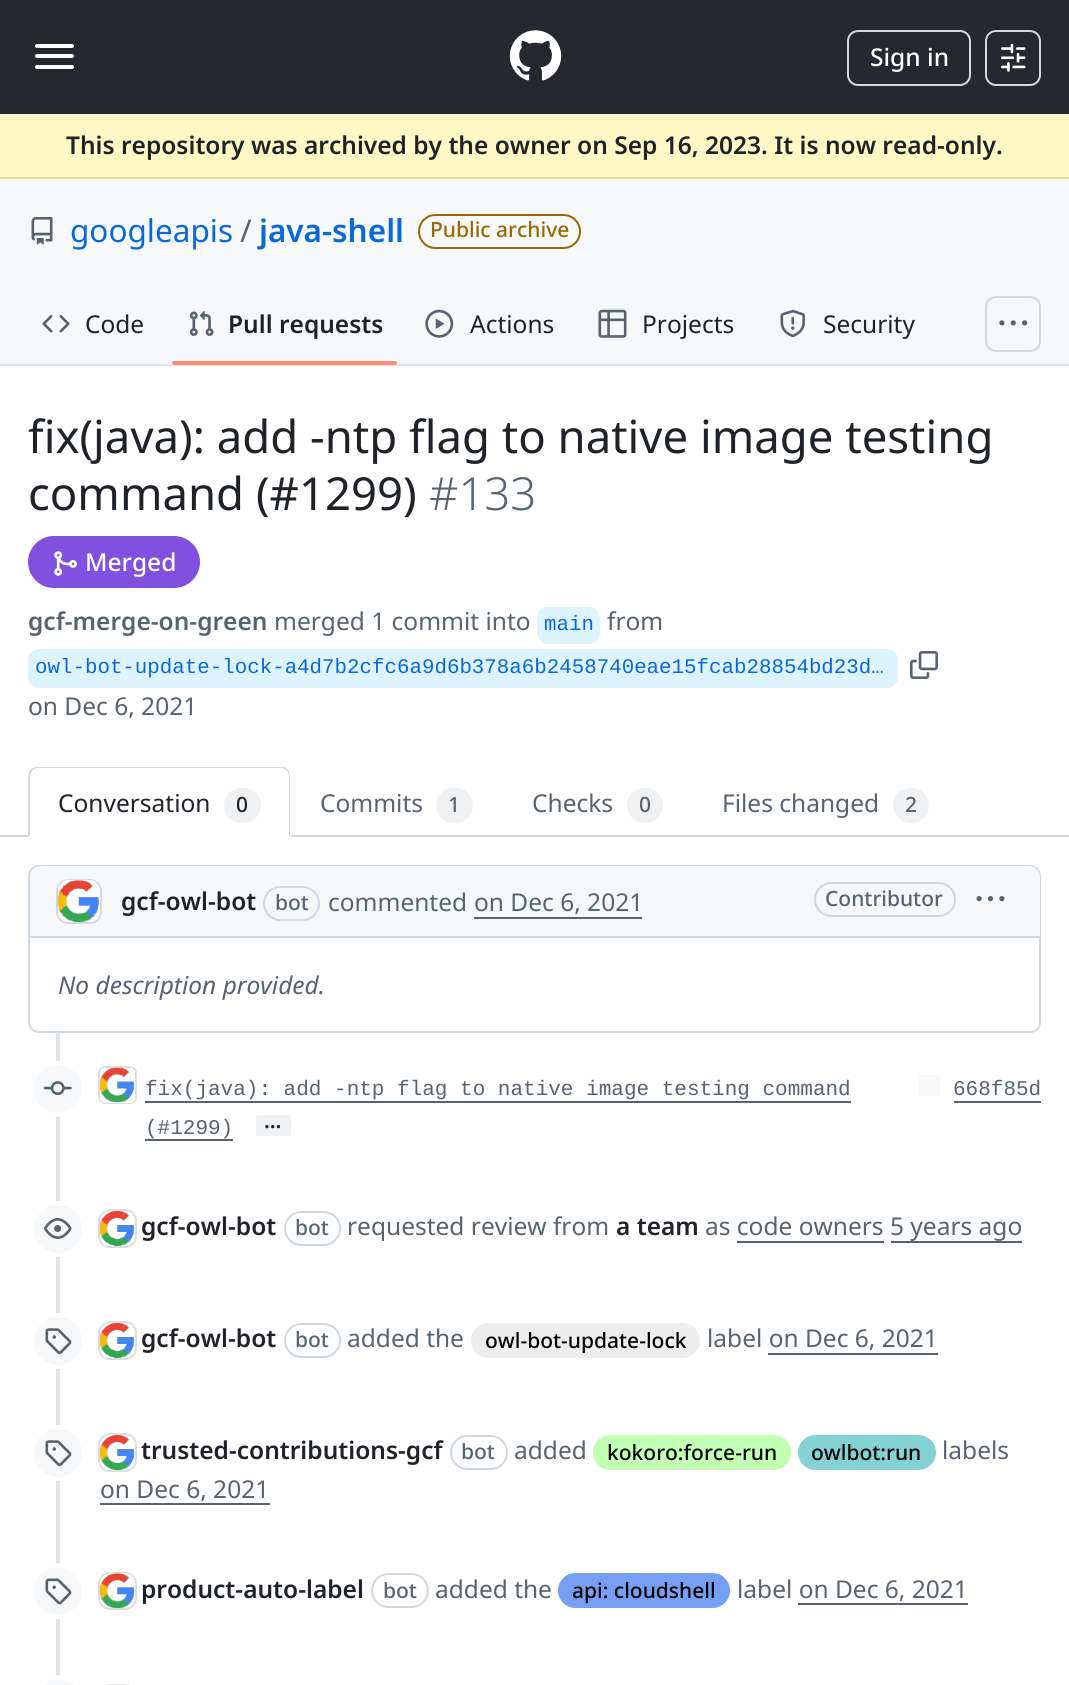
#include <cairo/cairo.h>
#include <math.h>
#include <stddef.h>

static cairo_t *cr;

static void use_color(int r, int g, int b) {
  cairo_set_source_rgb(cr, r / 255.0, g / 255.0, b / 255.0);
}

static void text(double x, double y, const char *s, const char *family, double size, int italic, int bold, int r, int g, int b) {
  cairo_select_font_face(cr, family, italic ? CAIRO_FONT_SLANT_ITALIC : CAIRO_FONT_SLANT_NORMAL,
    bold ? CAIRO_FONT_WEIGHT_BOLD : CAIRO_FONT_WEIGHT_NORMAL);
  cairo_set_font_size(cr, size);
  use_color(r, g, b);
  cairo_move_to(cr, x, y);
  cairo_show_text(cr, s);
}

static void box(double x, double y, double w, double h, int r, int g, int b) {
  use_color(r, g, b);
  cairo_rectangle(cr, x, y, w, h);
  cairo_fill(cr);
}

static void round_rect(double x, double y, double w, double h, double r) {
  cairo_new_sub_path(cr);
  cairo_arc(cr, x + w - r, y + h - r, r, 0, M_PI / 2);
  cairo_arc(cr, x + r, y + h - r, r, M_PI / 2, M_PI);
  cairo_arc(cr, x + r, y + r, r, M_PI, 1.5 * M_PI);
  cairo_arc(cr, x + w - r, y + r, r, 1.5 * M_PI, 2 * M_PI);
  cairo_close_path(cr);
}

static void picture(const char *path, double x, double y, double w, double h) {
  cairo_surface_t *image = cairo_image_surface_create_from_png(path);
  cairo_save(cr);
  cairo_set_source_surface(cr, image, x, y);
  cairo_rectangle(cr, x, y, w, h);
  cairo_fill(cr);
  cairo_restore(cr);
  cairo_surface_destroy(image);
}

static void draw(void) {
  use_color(255, 255, 255);
  cairo_paint(cr);
  box(0, 0, 1069, 114, 37, 41, 46);
  use_color(255, 255, 255);
  round_rect(35, 44, 39, 4, 2);
  cairo_fill(cr);
  round_rect(35, 54, 39, 4, 2);
  cairo_fill(cr);
  round_rect(35, 65, 39, 4, 2);
  cairo_fill(cr);
  picture("img_01.png", 509, 30, 53, 51);
  round_rect(848, 31, 122, 54, 10);
  use_color(209, 217, 224);
  cairo_stroke(cr);
  round_rect(986, 31, 54, 54, 10);
  cairo_stroke(cr);
  picture("img_02.png", 1001, 43, 25, 29);
  box(0, 114, 1069, 63, 255, 248, 197);
  box(0, 177, 1069, 2, 238, 216, 136);
  box(0, 179, 1069, 185, 246, 248, 250);
  picture("img_03.png", 31, 217, 22, 28);
  round_rect(419, 215, 161, 33, 16.5);
  use_color(154, 103, 0);
  cairo_stroke(cr);
  box(0, 364, 1069, 2, 220, 226, 232);
  picture("img_04.png", 42, 315, 28, 18);
  picture("img_05.png", 189, 310, 25, 26);
  use_color(253, 140, 115);
  round_rect(172, 361, 225, 4, 2);
  cairo_fill(cr);
  picture("img_06.png", 425, 309, 29, 29);
  picture("img_07.png", 598, 309, 29, 29);
  picture("img_08.png", 780, 309, 25, 29);
  round_rect(986, 297, 54, 54, 10);
  use_color(209, 217, 224);
  cairo_stroke(cr);
  picture("img_09.png", 999, 320, 29, 6);
  use_color(130, 80, 223);
  round_rect(28, 536, 172, 52, 26);
  cairo_fill(cr);
  picture("img_10.png", 54, 551, 23, 25);
  use_color(221, 244, 255);
  round_rect(537, 607, 63, 37, 11);
  cairo_fill(cr);
  round_rect(28, 649, 870, 39, 11);
  cairo_fill(cr);
  picture("img_11.png", 910, 651, 28, 28);
  box(0, 835, 1069, 2, 209, 217, 224);
  use_color(255, 255, 255);
  cairo_new_path(cr);
  cairo_move_to(cr, 39, 767);
  cairo_line_to(cr, 280, 767);
  cairo_curve_to(cr, 286, 767, 291, 772, 291, 778);
  cairo_line_to(cr, 291, 837);
  cairo_line_to(cr, 28, 837);
  cairo_line_to(cr, 28, 778);
  cairo_curve_to(cr, 28, 772, 33, 767, 39, 767);
  cairo_close_path(cr);
  cairo_fill(cr);
  cairo_save(cr);
  cairo_rectangle(cr, 28, 767, 1013, 70);
  cairo_clip(cr);
  use_color(209, 217, 224);
  cairo_set_fill_rule(cr, CAIRO_FILL_RULE_EVEN_ODD);
  cairo_new_path(cr);
  cairo_move_to(cr, 38, 766);
  cairo_line_to(cr, 280, 766);
  cairo_curve_to(cr, 286, 766, 290, 771, 290, 777);
  cairo_line_to(cr, 290, 836);
  cairo_line_to(cr, 28, 836);
  cairo_line_to(cr, 28, 777);
  cairo_curve_to(cr, 28, 771, 33, 766, 38, 766);
  cairo_close_path(cr);
  cairo_move_to(cr, 38, 768);
  cairo_line_to(cr, 280, 768);
  cairo_curve_to(cr, 285, 768, 289, 772, 289, 777);
  cairo_line_to(cr, 289, 836);
  cairo_line_to(cr, 30, 836);
  cairo_line_to(cr, 30, 777);
  cairo_curve_to(cr, 30, 772, 34, 768, 38, 768);
  cairo_close_path(cr);
  cairo_fill(cr);
  cairo_restore(cr);
  use_color(240, 241, 243);
  round_rect(224, 788, 37, 35, 17.5);
  cairo_fill(cr);
  round_rect(436, 788, 37, 35, 17.5);
  cairo_fill(cr);
  round_rect(627, 788, 36, 35, 17.5);
  cairo_fill(cr);
  round_rect(893, 788, 36, 35, 17.5);
  cairo_fill(cr);
  round_rect(29, 866, 1011, 166, 10);
  use_color(209, 217, 224);
  cairo_stroke(cr);
  use_color(246, 248, 250);
  cairo_new_path(cr);
  cairo_move_to(cr, 41, 866);
  cairo_line_to(cr, 1029, 866);
  cairo_curve_to(cr, 1035, 866, 1040, 871, 1040, 877);
  cairo_line_to(cr, 1040, 938);
  cairo_line_to(cr, 30, 938);
  cairo_line_to(cr, 30, 877);
  cairo_curve_to(cr, 30, 871, 35, 866, 41, 866);
  cairo_close_path(cr);
  cairo_fill(cr);
  box(30, 936, 1010, 2, 209, 217, 224);
  round_rect(57, 880, 44, 43, 11);
  use_color(214, 216, 219);
  cairo_stroke(cr);
  use_color(255, 255, 255);
  round_rect(58, 880, 42, 42, 11);
  cairo_fill(cr);
  picture("img_12.png", 57, 880, 42, 43);
  round_rect(264, 887, 55, 33, 16.5);
  use_color(209, 217, 224);
  cairo_stroke(cr);
  box(474, 917, 168, 2, 89, 99, 110);
  round_rect(815, 883, 140, 33, 16.5);
  use_color(209, 217, 224);
  cairo_stroke(cr);
  picture("img_13.png", 976, 896, 29, 6);
  box(56, 1033, 4, 643, 223, 228, 233);
  use_color(246, 248, 250);
  cairo_arc(cr, 58, 1089, 26, 0, 2 * M_PI);
  cairo_fill_preserve(cr);
  use_color(255, 255, 255);
  cairo_set_line_width(cr, 4);
  cairo_stroke(cr);
  picture("img_14.png", 43, 1081, 29, 15);
  round_rect(99, 1067, 37, 36, 6);
  use_color(221, 222, 223);
  cairo_set_line_width(cr, 2);
  cairo_stroke(cr);
  use_color(255, 255, 255);
  round_rect(100, 1068, 35, 35, 5);
  cairo_fill(cr);
  picture("img_15.png", 100, 1067, 34, 36);
  box(145, 1101, 706, 2, 89, 99, 110);
  box(145, 1139, 88, 2, 89, 99, 110);
  use_color(240, 241, 243);
  round_rect(256, 1115, 35, 21, 2);
  cairo_fill(cr);
  box(919, 1075, 21, 21, 246, 248, 250);
  box(954, 1101, 87, 2, 89, 99, 110);
  use_color(246, 248, 250);
  cairo_arc(cr, 58, 1229, 26, 0, 2 * M_PI);
  cairo_fill_preserve(cr);
  use_color(255, 255, 255);
  cairo_set_line_width(cr, 4);
  cairo_stroke(cr);
  picture("img_16.png", 44, 1218, 28, 21);
  round_rect(99, 1210, 37, 37, 11);
  use_color(221, 222, 223);
  cairo_set_line_width(cr, 2);
  cairo_stroke(cr);
  use_color(255, 255, 255);
  round_rect(100, 1211, 35, 35, 11);
  cairo_fill(cr);
  picture("img_17.png", 99, 1211, 35, 35);
  round_rect(285, 1212, 55, 33, 16.5);
  use_color(209, 217, 224);
  cairo_stroke(cr);
  box(737, 1241, 147, 2, 89, 99, 110);
  box(891, 1241, 131, 2, 89, 99, 110);
  use_color(246, 248, 250);
  cairo_arc(cr, 58, 1341, 26, 0, 2 * M_PI);
  cairo_fill_preserve(cr);
  use_color(255, 255, 255);
  cairo_set_line_width(cr, 4);
  cairo_stroke(cr);
  picture("img_18.png", 45, 1328, 27, 27);
  round_rect(99, 1322, 37, 37, 11);
  use_color(221, 222, 223);
  cairo_set_line_width(cr, 2);
  cairo_stroke(cr);
  use_color(255, 255, 255);
  round_rect(100, 1323, 35, 35, 11);
  cairo_fill(cr);
  picture("img_17.png", 99, 1323, 35, 35);
  round_rect(285, 1324, 55, 33, 16.5);
  use_color(209, 217, 224);
  cairo_stroke(cr);
  use_color(237, 237, 237);
  round_rect(471, 1323, 229, 35, 17.5);
  cairo_fill(cr);
  box(768, 1353, 170, 2, 89, 99, 110);
  use_color(246, 248, 250);
  cairo_arc(cr, 58, 1453, 26, 0, 2 * M_PI);
  cairo_fill_preserve(cr);
  use_color(255, 255, 255);
  cairo_set_line_width(cr, 4);
  cairo_stroke(cr);
  picture("img_18.png", 45, 1440, 27, 27);
  round_rect(99, 1434, 37, 37, 11);
  use_color(221, 222, 223);
  cairo_set_line_width(cr, 2);
  cairo_stroke(cr);
  use_color(255, 255, 255);
  round_rect(100, 1435, 35, 35, 11);
  cairo_fill(cr);
  picture("img_19.png", 99, 1435, 36, 35);
  round_rect(451, 1436, 56, 33, 16.5);
  use_color(209, 217, 224);
  cairo_stroke(cr);
  use_color(193, 255, 178);
  round_rect(593, 1435, 198, 35, 17.5);
  cairo_fill(cr);
  use_color(132, 210, 212);
  round_rect(798, 1435, 138, 35, 17.5);
  cairo_fill(cr);
  box(100, 1503, 170, 2, 89, 99, 110);
  use_color(246, 248, 250);
  cairo_arc(cr, 58, 1591, 26, 0, 2 * M_PI);
  cairo_fill_preserve(cr);
  use_color(255, 255, 255);
  cairo_set_line_width(cr, 4);
  cairo_stroke(cr);
  picture("img_20.png", 45, 1578, 27, 27);
  round_rect(99, 1573, 37, 36, 11);
  use_color(221, 222, 223);
  cairo_set_line_width(cr, 2);
  cairo_stroke(cr);
  use_color(255, 255, 255);
  round_rect(100, 1573, 35, 35, 11);
  cairo_fill(cr);
  picture("img_21.png", 99, 1573, 36, 36);
  round_rect(372, 1574, 56, 33, 16.5);
  use_color(209, 217, 224);
  cairo_stroke(cr);
  use_color(118, 158, 243);
  round_rect(558, 1573, 172, 35, 17.5);
  cairo_fill(cr);
  box(798, 1603, 170, 2, 89, 99, 110);
  use_color(246, 248, 250);
  round_rect(32, 1677, 52, 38, 26);
  cairo_fill_preserve(cr);
  use_color(255, 255, 255);
  cairo_set_line_width(cr, 4);
  cairo_stroke(cr);
  round_rect(99, 1685, 37, 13, 11);
  use_color(221, 222, 223);
  cairo_set_line_width(cr, 2);
  cairo_stroke(cr);
  text(870, 66, "Sign in", "Noto Sans Medium", 24.5, 0, 0, 255, 255, 255);
  text(66, 154, "This repository was archived by the owner on Sep 16, 2023. It is now read-only.", "Noto Sans SemiBold", 24.5, 0, 0, 31, 35, 40);
  text(70, 242, "googleapis", "Noto Sans", 31.5, 0, 0, 9, 105, 218);
  text(240, 242, "/", "Noto Sans", 31.5, 0, 0, 89, 99, 110);
  text(259, 242, "java-shell", "Noto Sans SemiBold", 31.5, 0, 0, 9, 105, 218);
  text(430, 237, "Public archive", "Noto Sans Medium", 21, 0, 0, 154, 103, 0);
  text(85, 333, "Code", "Noto Sans", 24.5, 0, 0, 31, 35, 40);
  text(228, 333, "Pull requests", "Noto Sans SemiBold", 24.5, 0, 0, 31, 35, 40);
  text(470, 333, "Actions", "Noto Sans", 24.5, 0, 0, 31, 35, 40);
  text(642, 333, "Projects", "Noto Sans", 24.5, 0, 0, 31, 35, 40);
  text(823, 333, "Security", "Noto Sans", 24.5, 0, 0, 31, 35, 40);
  text(28, 453, "fix(java): add -ntp flag to native image testing", "Noto Sans", 45.5, 0, 0, 31, 35, 40);
  text(28, 510, "command (#1299)", "Noto Sans", 45.5, 0, 0, 31, 35, 40);
  text(429, 510, "#133", "Noto Sans Light", 45.5, 0, 0, 89, 99, 110);
  text(85, 571, "Merged", "Noto Sans Medium", 24.5, 0, 0, 255, 255, 255);
  text(28, 630, "gcf-merge-on-green", "Noto Sans SemiBold", 24.5, 0, 0, 89, 99, 110);
  text(274, 630, "merged 1 commit into", "Noto Sans", 24.5, 0, 0, 89, 99, 110);
  text(544, 630, "main", "Liberation Mono", 20.8, 0, 0, 9, 105, 218);
  text(607, 630, "from", "Noto Sans", 24.5, 0, 0, 89, 99, 110);
  text(35, 673, "owl-bot-update-lock-a4d7b2cfc6a9d6b378a6b2458740eae15fcab28854bd23d…", "Liberation Mono", 20.8, 0, 0, 9, 105, 218);
  text(28, 715, "on Dec 6, 2021", "Noto Sans", 24.5, 0, 0, 89, 99, 110);
  text(58, 812, "Conversation", "Noto Sans", 24.5, 0, 0, 31, 35, 40);
  text(236, 812, "0", "Noto Sans Medium", 21, 0, 0, 31, 35, 40);
  text(320, 812, "Commits", "Noto Sans", 24.5, 0, 0, 89, 99, 110);
  text(448, 812, "1", "Noto Sans Medium", 21, 0, 0, 89, 99, 110);
  text(532, 812, "Checks", "Noto Sans", 24.5, 0, 0, 89, 99, 110);
  text(639, 812, "0", "Noto Sans Medium", 21, 0, 0, 89, 99, 110);
  text(722, 812, "Files changed", "Noto Sans", 24.5, 0, 0, 89, 99, 110);
  text(905, 812, "2", "Noto Sans Medium", 21, 0, 0, 89, 99, 110);
  text(121, 910, "gcf-owl-bot", "Noto Sans SemiBold", 24.5, 0, 0, 31, 35, 40);
  text(275, 910, "bot", "Noto Sans Medium", 21, 0, 0, 89, 99, 110);
  text(328, 911, "commented", "Noto Sans", 24.5, 0, 0, 89, 99, 110);
  text(474, 911, "on Dec 6, 2021", "Noto Sans", 24.5, 0, 0, 89, 99, 110);
  text(825, 906, "Contributor", "Noto Sans Medium", 21, 0, 0, 89, 99, 110);
  text(58, 994, "No description provided.", "Noto Sans", 24.5, 1, 0, 89, 99, 110);
  text(145, 1095, "fix(java): add -ntp flag to native image testing command", "Liberation Mono", 21, 0, 0, 89, 99, 110);
  text(145, 1134, "(#1299)", "Liberation Mono", 21, 0, 0, 89, 99, 110);
  text(264, 1128, "…", "Noto Sans SemiBold", 21, 0, 0, 31, 35, 40);
  text(953, 1095, "668f85d", "Liberation Mono", 21, 0, 0, 89, 99, 110);
  text(141, 1235, "gcf-owl-bot", "Noto Sans SemiBold", 24.5, 0, 0, 31, 35, 40);
  text(295, 1235, "bot", "Noto Sans Medium", 21, 0, 0, 89, 99, 110);
  text(347, 1235, "requested review from", "Noto Sans", 24.5, 0, 0, 89, 99, 110);
  text(616, 1235, "a team", "Noto Sans SemiBold", 24.5, 0, 0, 31, 35, 40);
  text(705, 1235, "as code owners 5 years ago", "Noto Sans", 24.5, 0, 0, 89, 99, 110);
  text(141, 1347, "gcf-owl-bot", "Noto Sans SemiBold", 24.5, 0, 0, 31, 35, 40);
  text(295, 1347, "bot", "Noto Sans Medium", 21, 0, 0, 89, 99, 110);
  text(347, 1347, "added the", "Noto Sans", 24.5, 0, 0, 89, 99, 110);
  text(485, 1348, "owl-bot-update-lock", "Noto Sans Medium", 21, 0, 0, 0, 0, 0);
  text(707, 1347, "label on Dec 6, 2021", "Noto Sans", 24.5, 0, 0, 89, 99, 110);
  text(141, 1459, "trusted-contributions-gcf", "Noto Sans SemiBold", 24.5, 0, 0, 31, 35, 40);
  text(461, 1459, "bot", "Noto Sans Medium", 21, 0, 0, 89, 99, 110);
  text(514, 1459, "added", "Noto Sans", 24.5, 0, 0, 89, 99, 110);
  text(607, 1460, "kokoro:force-run", "Noto Sans Medium", 21, 0, 0, 0, 0, 0);
  text(811, 1460, "owlbot:run", "Noto Sans Medium", 21, 0, 0, 0, 0, 0);
  text(942, 1459, "labels", "Noto Sans", 24.5, 0, 0, 89, 99, 110);
  text(100, 1498, "on Dec 6, 2021", "Noto Sans", 24.5, 0, 0, 89, 99, 110);
  text(141, 1598, "product-auto-label", "Noto Sans SemiBold", 24.5, 0, 0, 31, 35, 40);
  text(383, 1598, "bot", "Noto Sans Medium", 21, 0, 0, 89, 99, 110);
  text(435, 1598, "added the", "Noto Sans", 24.5, 0, 0, 89, 99, 110);
  text(572, 1598, "api: cloudshell", "Noto Sans Medium", 21, 0, 0, 0, 0, 0);
  text(737, 1598, "label on Dec 6, 2021", "Noto Sans", 24.5, 0, 0, 89, 99, 110);
}

int main(void) {
  cairo_surface_t *surface = cairo_image_surface_create(CAIRO_FORMAT_RGB24, 1069, 1685);
  cr = cairo_create(surface);
  cairo_font_options_t *options = cairo_font_options_create();
  cairo_font_options_set_hint_metrics(options, CAIRO_HINT_METRICS_OFF);
  cairo_font_options_set_hint_style(options, CAIRO_HINT_STYLE_NONE);
  cairo_set_font_options(cr, options);
  cairo_set_miter_limit(cr, 4);
  draw();
  cairo_surface_write_to_png(surface, "out.png");
  cairo_font_options_destroy(options);
  cairo_destroy(cr);
  cairo_surface_destroy(surface);
  return 0;
}
